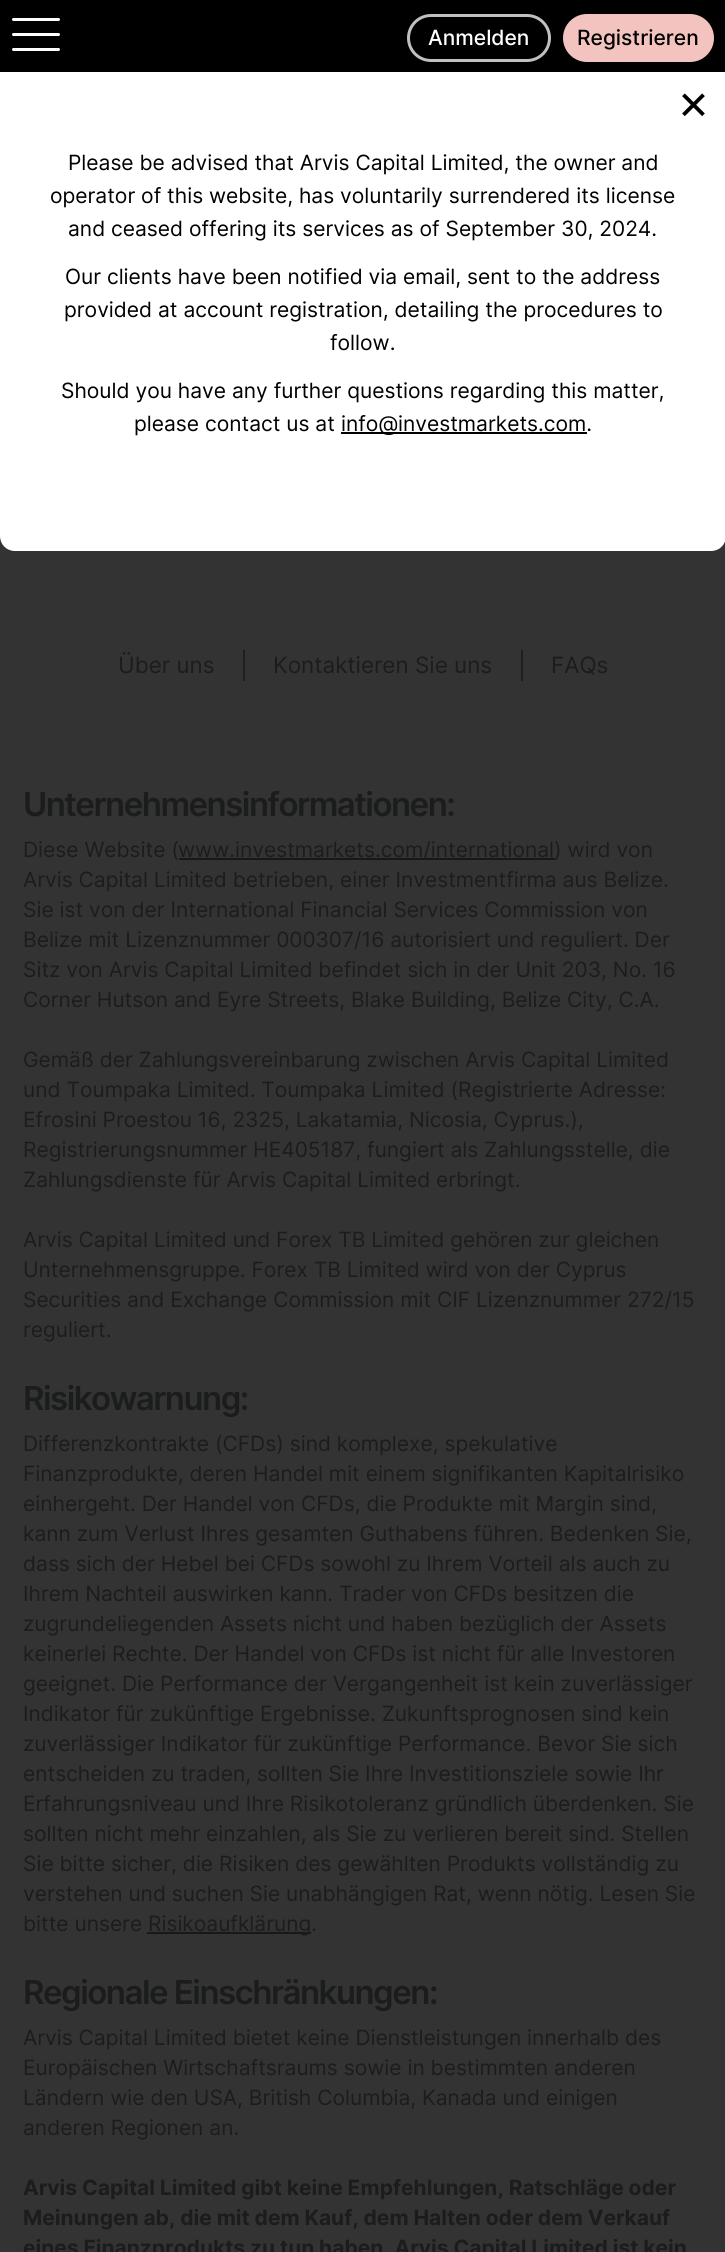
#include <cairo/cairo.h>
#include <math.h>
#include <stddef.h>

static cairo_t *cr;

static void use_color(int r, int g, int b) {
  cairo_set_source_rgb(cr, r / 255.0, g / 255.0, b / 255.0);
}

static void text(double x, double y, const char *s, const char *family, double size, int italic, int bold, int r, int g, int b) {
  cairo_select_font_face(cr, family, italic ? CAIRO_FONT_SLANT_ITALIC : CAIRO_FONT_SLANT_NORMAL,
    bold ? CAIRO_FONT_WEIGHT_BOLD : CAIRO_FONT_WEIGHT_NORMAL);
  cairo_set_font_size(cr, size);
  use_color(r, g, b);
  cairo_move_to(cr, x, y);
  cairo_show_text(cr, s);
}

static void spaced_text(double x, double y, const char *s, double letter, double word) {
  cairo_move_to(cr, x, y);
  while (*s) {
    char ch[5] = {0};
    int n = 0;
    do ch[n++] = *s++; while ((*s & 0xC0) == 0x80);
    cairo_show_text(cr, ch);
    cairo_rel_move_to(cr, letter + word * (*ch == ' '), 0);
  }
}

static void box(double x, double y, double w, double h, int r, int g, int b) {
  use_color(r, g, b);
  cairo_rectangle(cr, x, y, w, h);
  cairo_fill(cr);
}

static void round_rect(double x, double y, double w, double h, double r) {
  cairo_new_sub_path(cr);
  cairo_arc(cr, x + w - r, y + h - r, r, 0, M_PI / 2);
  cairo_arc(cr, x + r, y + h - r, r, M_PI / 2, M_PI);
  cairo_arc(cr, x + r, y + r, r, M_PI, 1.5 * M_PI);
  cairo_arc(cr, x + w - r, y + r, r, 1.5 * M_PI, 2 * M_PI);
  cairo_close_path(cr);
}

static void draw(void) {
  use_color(51, 51, 51);
  cairo_paint(cr);
  box(0, 0, 725, 72, 0, 0, 0);
  use_color(255, 255, 255);
  round_rect(12, 18, 48, 3, 1.5);
  cairo_fill(cr);
  round_rect(12, 33, 48, 3, 1.5);
  cairo_fill(cr);
  round_rect(12, 48, 48, 3, 1.5);
  cairo_fill(cr);
  round_rect(408.5, 15.5, 141, 45, 22.5);
  use_color(192, 192, 192);
  cairo_set_line_width(cr, 3);
  cairo_stroke(cr);
  use_color(243, 196, 191);
  round_rect(563, 14, 151, 48, 24);
  cairo_fill(cr);
  box(0, 539, 1, 2, 31, 31, 31);
  use_color(255, 255, 255);
  cairo_new_path(cr);
  cairo_move_to(cr, 0, 72);
  cairo_line_to(cr, 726, 72);
  cairo_line_to(cr, 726, 536);
  cairo_curve_to(cr, 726, 544.5, 719.5, 551, 711, 551);
  cairo_line_to(cr, 15, 551);
  cairo_curve_to(cr, 6.5, 551, 0, 544.5, 0, 536);
  cairo_close_path(cr);
  cairo_fill(cr);
  box(341, 432, 246, 2, 0, 0, 0);
  box(243, 650, 2, 31, 31, 31, 31);
  box(521, 650, 2, 31, 31, 31, 31);
  box(179, 858, 376, 2, 24, 24, 27);
  box(147, 1932, 164, 2, 24, 24, 27);
  text(428, 45, "Anmelden", "Inter Medium", 21, 0, 0, 255, 255, 255);
  text(577, 45, "Registrieren", "Inter Medium", 21, 0, 0, 0, 0, 0);
  text(677, 119, "×", "Inter", 50, 0, 0, 0, 0, 0);
  text(68, 170, "Please be advised that Arvis Capital Limited, the owner and", "Inter", 21, 0, 0, 0, 0, 0);
  text(50, 203, "operator of this website, has voluntarily surrendered its license", "Inter", 21, 0, 0, 0, 0, 0);
  text(68, 236, "and ceased offering its services as of September 30, 2024.", "Inter", 21, 0, 0, 0, 0, 0);
  text(65, 284, "Our clients have been notified via email, sent to the address", "Inter", 21, 0, 0, 0, 0, 0);
  text(64, 317, "provided at account registration, detailing the procedures to", "Inter", 21, 0, 0, 0, 0, 0);
  text(330, 350, "follow.", "Inter", 21, 0, 0, 0, 0, 0);
  text(61, 398, "Should you have any further questions regarding this matter,", "Inter", 21, 0, 0, 0, 0, 0);
  text(134, 431, "please contact us at", "Inter", 21, 0, 0, 0, 0, 0);
  text(341, 431, "info@investmarkets.com.", "Inter", 21, 0, 0, 0, 0, 0);
  text(118, 673, "Über uns", "Inter", 22.5, 0, 0, 27, 28, 28);
  text(273, 673, "Kontaktieren Sie uns", "Inter", 22.5, 0, 0, 27, 28, 28);
  text(551, 673, "FAQs", "Inter", 22.5, 0, 0, 27, 28, 28);
  cairo_select_font_face(cr, "Inter SemiBold", CAIRO_FONT_SLANT_NORMAL, CAIRO_FONT_WEIGHT_NORMAL);
  cairo_set_font_size(cr, 33);
  spaced_text(23, 816, "Unternehmensinformationen:", -1.5, 0);
  text(23, 857, "Diese Website (", "Inter", 21, 0, 0, 27, 28, 28);
  text(178, 857, "www.investmarkets.com/international) wird von", "Inter", 21, 0, 0, 27, 28, 28);
  text(23, 887, "Arvis Capital Limited betrieben, einer Investmentfirma aus Belize.", "Inter", 21, 0, 0, 27, 28, 28);
  text(23, 917, "Sie ist von der International Financial Services Commission von", "Inter", 21, 0, 0, 27, 28, 28);
  text(23, 947, "Belize mit Lizenznummer 000307/16 autorisiert und reguliert. Der", "Inter", 21, 0, 0, 27, 28, 28);
  text(23, 977, "Sitz von Arvis Capital Limited befindet sich in der Unit 203, No. 16", "Inter", 21, 0, 0, 27, 28, 28);
  text(23, 1007, "Corner Hutson and Eyre Streets, Blake Building, Belize City, C.A.", "Inter", 21, 0, 0, 27, 28, 28);
  text(23, 1067, "Gemäß der Zahlungsvereinbarung zwischen Arvis Capital Limited", "Inter", 21, 0, 0, 27, 28, 28);
  text(23, 1097, "und Toumpaka Limited. Toumpaka Limited (Registrierte Adresse:", "Inter", 21, 0, 0, 27, 28, 28);
  text(23, 1127, "Efrosini Proestou 16, 2325, Lakatamia, Nicosia, Cyprus.),", "Inter", 21, 0, 0, 27, 28, 28);
  text(23, 1157, "Registrierungsnummer HE405187, fungiert als Zahlungsstelle, die", "Inter", 21, 0, 0, 27, 28, 28);
  text(23, 1187, "Zahlungsdienste für Arvis Capital Limited erbringt.", "Inter", 21, 0, 0, 27, 28, 28);
  text(23, 1247, "Arvis Capital Limited und Forex TB Limited gehören zur gleichen", "Inter", 21, 0, 0, 27, 28, 28);
  text(23, 1277, "Unternehmensgruppe. Forex TB Limited wird von der Cyprus", "Inter", 21, 0, 0, 27, 28, 28);
  text(23, 1307, "Securities and Exchange Commission mit CIF Lizenznummer 272/15", "Inter", 21, 0, 0, 27, 28, 28);
  text(23, 1337, "reguliert.", "Inter", 21, 0, 0, 27, 28, 28);
  cairo_select_font_face(cr, "Inter SemiBold", CAIRO_FONT_SLANT_NORMAL, CAIRO_FONT_WEIGHT_NORMAL);
  cairo_set_font_size(cr, 33);
  spaced_text(23, 1410, "Risikowarnung:", -1.5, 0);
  text(23, 1451, "Differenzkontrakte (CFDs) sind komplexe, spekulative", "Inter", 21, 0, 0, 27, 28, 28);
  text(23, 1481, "Finanzprodukte, deren Handel mit einem signifikanten Kapitalrisiko", "Inter", 21, 0, 0, 27, 28, 28);
  text(23, 1511, "einhergeht. Der Handel von CFDs, die Produkte mit Margin sind,", "Inter", 21, 0, 0, 27, 28, 28);
  text(23, 1541, "kann zum Verlust Ihres gesamten Guthabens führen. Bedenken Sie,", "Inter", 21, 0, 0, 27, 28, 28);
  text(23, 1571, "dass sich der Hebel bei CFDs sowohl zu Ihrem Vorteil als auch zu", "Inter", 21, 0, 0, 27, 28, 28);
  text(23, 1601, "Ihrem Nachteil auswirken kann. Trader von CFDs besitzen die", "Inter", 21, 0, 0, 27, 28, 28);
  text(23, 1631, "zugrundeliegenden Assets nicht und haben bezüglich der Assets", "Inter", 21, 0, 0, 27, 28, 28);
  text(23, 1661, "keinerlei Rechte. Der Handel von CFDs ist nicht für alle Investoren", "Inter", 21, 0, 0, 27, 28, 28);
  text(23, 1691, "geeignet. Die Performance der Vergangenheit ist kein zuverlässiger", "Inter", 21, 0, 0, 27, 28, 28);
  text(23, 1721, "Indikator für zukünftige Ergebnisse. Zukunftsprognosen sind kein", "Inter", 21, 0, 0, 27, 28, 28);
  text(23, 1751, "zuverlässiger Indikator für zukünftige Performance. Bevor Sie sich", "Inter", 21, 0, 0, 27, 28, 28);
  text(23, 1781, "entscheiden zu traden, sollten Sie Ihre Investitionsziele sowie Ihr", "Inter", 21, 0, 0, 27, 28, 28);
  text(23, 1811, "Erfahrungsniveau und Ihre Risikotoleranz gründlich überdenken. Sie", "Inter", 21, 0, 0, 27, 28, 28);
  text(23, 1841, "sollten nicht mehr einzahlen, als Sie zu verlieren bereit sind. Stellen", "Inter", 21, 0, 0, 27, 28, 28);
  text(23, 1871, "Sie bitte sicher, die Risiken des gewählten Produkts vollständig zu", "Inter", 21, 0, 0, 27, 28, 28);
  text(23, 1901, "verstehen und suchen Sie unabhängigen Rat, wenn nötig. Lesen Sie", "Inter", 21, 0, 0, 27, 28, 28);
  text(23, 1931, "bitte unsere", "Inter", 21, 0, 0, 27, 28, 28);
  text(148, 1931, "Risikoaufklärung.", "Inter", 21, 0, 0, 27, 28, 28);
  cairo_select_font_face(cr, "Inter SemiBold", CAIRO_FONT_SLANT_NORMAL, CAIRO_FONT_WEIGHT_NORMAL);
  cairo_set_font_size(cr, 33);
  spaced_text(23, 2004, "Regionale Einschränkungen:", -1.5, 0);
  text(23, 2045, "Arvis Capital Limited bietet keine Dienstleistungen innerhalb des", "Inter", 21, 0, 0, 27, 28, 28);
  text(23, 2075, "Europäischen Wirtschaftsraums sowie in bestimmten anderen", "Inter", 21, 0, 0, 27, 28, 28);
  text(23, 2105, "Ländern wie den USA, British Columbia, Kanada und einigen", "Inter", 21, 0, 0, 27, 28, 28);
  text(23, 2135, "anderen Regionen an.", "Inter", 21, 0, 0, 27, 28, 28);
  text(23, 2195, "Arvis Capital Limited gibt keine Empfehlungen, Ratschläge oder", "Inter", 21, 0, 1, 27, 28, 28);
  text(23, 2225, "Meinungen ab, die mit dem Kauf, dem Halten oder dem Verkauf", "Inter", 21, 0, 1, 27, 28, 28);
  text(23, 2255, "eines Finanzprodukts zu tun haben. Arvis Capital Limited ist kein", "Inter", 21, 0, 1, 27, 28, 28);
}

int main(void) {
  cairo_surface_t *surface = cairo_image_surface_create(CAIRO_FORMAT_RGB24, 725, 2252);
  cr = cairo_create(surface);
  cairo_font_options_t *options = cairo_font_options_create();
  cairo_font_options_set_hint_metrics(options, CAIRO_HINT_METRICS_OFF);
  cairo_font_options_set_hint_style(options, CAIRO_HINT_STYLE_NONE);
  cairo_set_font_options(cr, options);
  cairo_set_miter_limit(cr, 4);
  draw();
  cairo_surface_write_to_png(surface, "out.png");
  cairo_font_options_destroy(options);
  cairo_destroy(cr);
  cairo_surface_destroy(surface);
  return 0;
}
